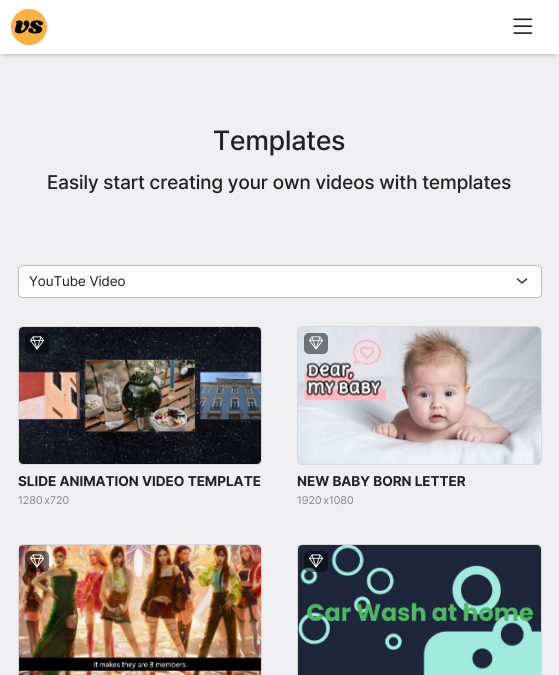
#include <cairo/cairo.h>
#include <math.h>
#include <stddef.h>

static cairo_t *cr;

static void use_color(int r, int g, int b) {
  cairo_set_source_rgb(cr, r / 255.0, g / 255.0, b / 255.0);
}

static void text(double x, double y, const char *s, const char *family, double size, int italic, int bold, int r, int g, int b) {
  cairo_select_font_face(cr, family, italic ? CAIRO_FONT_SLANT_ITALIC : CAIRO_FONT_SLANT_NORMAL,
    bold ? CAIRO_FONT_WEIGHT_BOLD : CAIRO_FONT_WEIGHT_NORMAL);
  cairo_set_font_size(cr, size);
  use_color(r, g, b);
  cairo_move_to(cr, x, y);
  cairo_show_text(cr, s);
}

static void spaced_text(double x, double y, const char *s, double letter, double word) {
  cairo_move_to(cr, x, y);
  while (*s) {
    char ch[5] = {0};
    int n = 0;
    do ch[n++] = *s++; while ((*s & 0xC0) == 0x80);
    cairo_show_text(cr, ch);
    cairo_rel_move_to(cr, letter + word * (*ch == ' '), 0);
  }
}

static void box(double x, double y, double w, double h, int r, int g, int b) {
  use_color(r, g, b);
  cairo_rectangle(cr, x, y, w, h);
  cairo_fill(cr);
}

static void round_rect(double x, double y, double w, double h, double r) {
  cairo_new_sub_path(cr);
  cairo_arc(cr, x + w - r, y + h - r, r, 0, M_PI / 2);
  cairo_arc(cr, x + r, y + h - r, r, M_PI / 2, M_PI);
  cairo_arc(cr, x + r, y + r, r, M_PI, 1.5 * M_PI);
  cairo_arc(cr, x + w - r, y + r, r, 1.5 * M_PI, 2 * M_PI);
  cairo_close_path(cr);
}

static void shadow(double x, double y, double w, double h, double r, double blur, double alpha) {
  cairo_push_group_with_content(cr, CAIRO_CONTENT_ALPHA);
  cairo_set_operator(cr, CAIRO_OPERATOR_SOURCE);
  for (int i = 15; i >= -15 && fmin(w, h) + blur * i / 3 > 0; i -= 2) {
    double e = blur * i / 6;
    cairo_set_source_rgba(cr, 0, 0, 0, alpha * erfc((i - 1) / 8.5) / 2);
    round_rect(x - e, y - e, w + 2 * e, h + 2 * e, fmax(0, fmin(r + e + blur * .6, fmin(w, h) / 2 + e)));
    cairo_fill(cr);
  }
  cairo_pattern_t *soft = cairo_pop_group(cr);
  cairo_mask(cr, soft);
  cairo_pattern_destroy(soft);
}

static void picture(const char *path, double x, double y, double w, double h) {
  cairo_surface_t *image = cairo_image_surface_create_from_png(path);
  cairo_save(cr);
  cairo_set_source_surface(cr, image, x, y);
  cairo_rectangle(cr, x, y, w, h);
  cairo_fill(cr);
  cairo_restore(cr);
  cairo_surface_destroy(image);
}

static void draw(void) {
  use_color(239, 239, 242);
  cairo_paint(cr);
  use_color(0, 0, 0);
  shadow(4, 7, 551, 46, 0, 3, 0.46);
  box(0, 0, 559, 54, 255, 255, 255);
  picture("img_01.png", 11, 9, 36, 36);
  picture("img_02.png", 513, 18, 20, 16);
  round_rect(18, 265, 524, 33, 5);
  cairo_fill(cr);
  cairo_new_path(cr);
  cairo_move_to(cr, 517.5, 279);
  cairo_line_to(cr, 522, 283);
  cairo_line_to(cr, 526.5, 279);
  use_color(52, 58, 64);
  cairo_set_line_width(cr, 1.5);
  cairo_set_line_cap(cr, CAIRO_LINE_CAP_ROUND);
  cairo_set_line_join(cr, CAIRO_LINE_JOIN_ROUND);
  cairo_stroke(cr);
  round_rect(18.5, 265.5, 523, 32, 4.5);
  use_color(187, 187, 187);
  cairo_set_line_width(cr, 1);
  cairo_set_line_cap(cr, CAIRO_LINE_CAP_BUTT);
  cairo_set_line_join(cr, CAIRO_LINE_JOIN_MITER);
  cairo_stroke(cr);
  round_rect(18.5, 326.5, 243, 138, 4.5);
  use_color(217, 217, 219);
  cairo_stroke(cr);
  picture("img_03.png", 19, 327, 242, 137);
  use_color(255, 255, 255);
  round_rect(19, 327, 242, 137, 4);
  cairo_fill(cr);
  picture("img_04.png", 19, 327, 242, 137);
  cairo_set_source_rgba(cr, 0, 0, 0, 0.5);
  round_rect(25, 333, 24, 21, 5);
  cairo_fill(cr);
  picture("img_05.png", 30, 336, 14, 14);
  round_rect(297.5, 326.5, 244, 138, 4.5);
  use_color(217, 217, 219);
  cairo_stroke(cr);
  picture("img_06.png", 298, 327, 243, 137);
  use_color(255, 255, 255);
  round_rect(298, 327, 243, 137, 4);
  cairo_fill(cr);
  picture("img_07.png", 298, 327, 243, 137);
  cairo_set_source_rgba(cr, 0, 0, 0, 0.5);
  round_rect(304, 333, 24, 21, 5);
  cairo_fill(cr);
  picture("img_08.png", 309, 336, 14, 14);
  round_rect(18.5, 544.5, 243, 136, 4.5);
  use_color(217, 217, 219);
  cairo_stroke(cr);
  picture("img_09.png", 19, 545, 242, 4);
  use_color(255, 255, 255);
  round_rect(19, 545, 242, 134, 4);
  cairo_fill(cr);
  picture("img_10.png", 19, 545, 242, 130);
  cairo_set_source_rgba(cr, 0, 0, 0, 0.5);
  round_rect(25, 551, 24, 21, 5);
  cairo_fill(cr);
  picture("img_11.png", 30, 554, 14, 14);
  round_rect(297.5, 544.5, 244, 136, 4.5);
  use_color(217, 217, 219);
  cairo_stroke(cr);
  picture("img_12.png", 298, 545, 243, 4);
  use_color(255, 255, 255);
  round_rect(298, 545, 243, 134, 4);
  cairo_fill(cr);
  picture("img_13.png", 298, 545, 243, 130);
  cairo_set_source_rgba(cr, 0, 0, 0, 0.5);
  round_rect(304, 551, 24, 21, 5);
  cairo_fill(cr);
  picture("img_14.png", 309, 554, 14, 14);
  text(213, 150, "Templates", "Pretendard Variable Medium", 27.5, 0, 0, 34, 34, 34);
  text(47, 189, "Easily start creating your own videos with templates", "Pretendard Variable Medium", 19.6, 0, 0, 34, 34, 34);
  text(29, 286, "YouTube Video", "Pretendard Variable", 14, 0, 0, 34, 34, 34);
  text(18, 486, "SLIDE ANIMATION VIDEO TEMPLATE", "Pretendard Variable", 14, 0, 1, 34, 34, 34);
  cairo_select_font_face(cr, "Pretendard Variable", CAIRO_FONT_SLANT_NORMAL, CAIRO_FONT_WEIGHT_NORMAL);
  cairo_set_font_size(cr, 11);
  use_color(137, 137, 138);
  spaced_text(18, 504, "1280 x720", 0, -1);
  text(297, 486, "NEW BABY BORN LETTER", "Pretendard Variable", 14, 0, 1, 34, 34, 34);
  cairo_select_font_face(cr, "Pretendard Variable", CAIRO_FONT_SLANT_NORMAL, CAIRO_FONT_WEIGHT_NORMAL);
  cairo_set_font_size(cr, 11);
  use_color(137, 137, 138);
  spaced_text(297, 504, "1920 x1080", 0, -1);
}

int main(void) {
  cairo_surface_t *surface = cairo_image_surface_create(CAIRO_FORMAT_RGB24, 559, 675);
  cr = cairo_create(surface);
  cairo_font_options_t *options = cairo_font_options_create();
  cairo_font_options_set_hint_metrics(options, CAIRO_HINT_METRICS_OFF);
  cairo_font_options_set_hint_style(options, CAIRO_HINT_STYLE_NONE);
  cairo_set_font_options(cr, options);
  cairo_set_miter_limit(cr, 4);
  draw();
  cairo_surface_write_to_png(surface, "out.png");
  cairo_font_options_destroy(options);
  cairo_destroy(cr);
  cairo_surface_destroy(surface);
  return 0;
}
